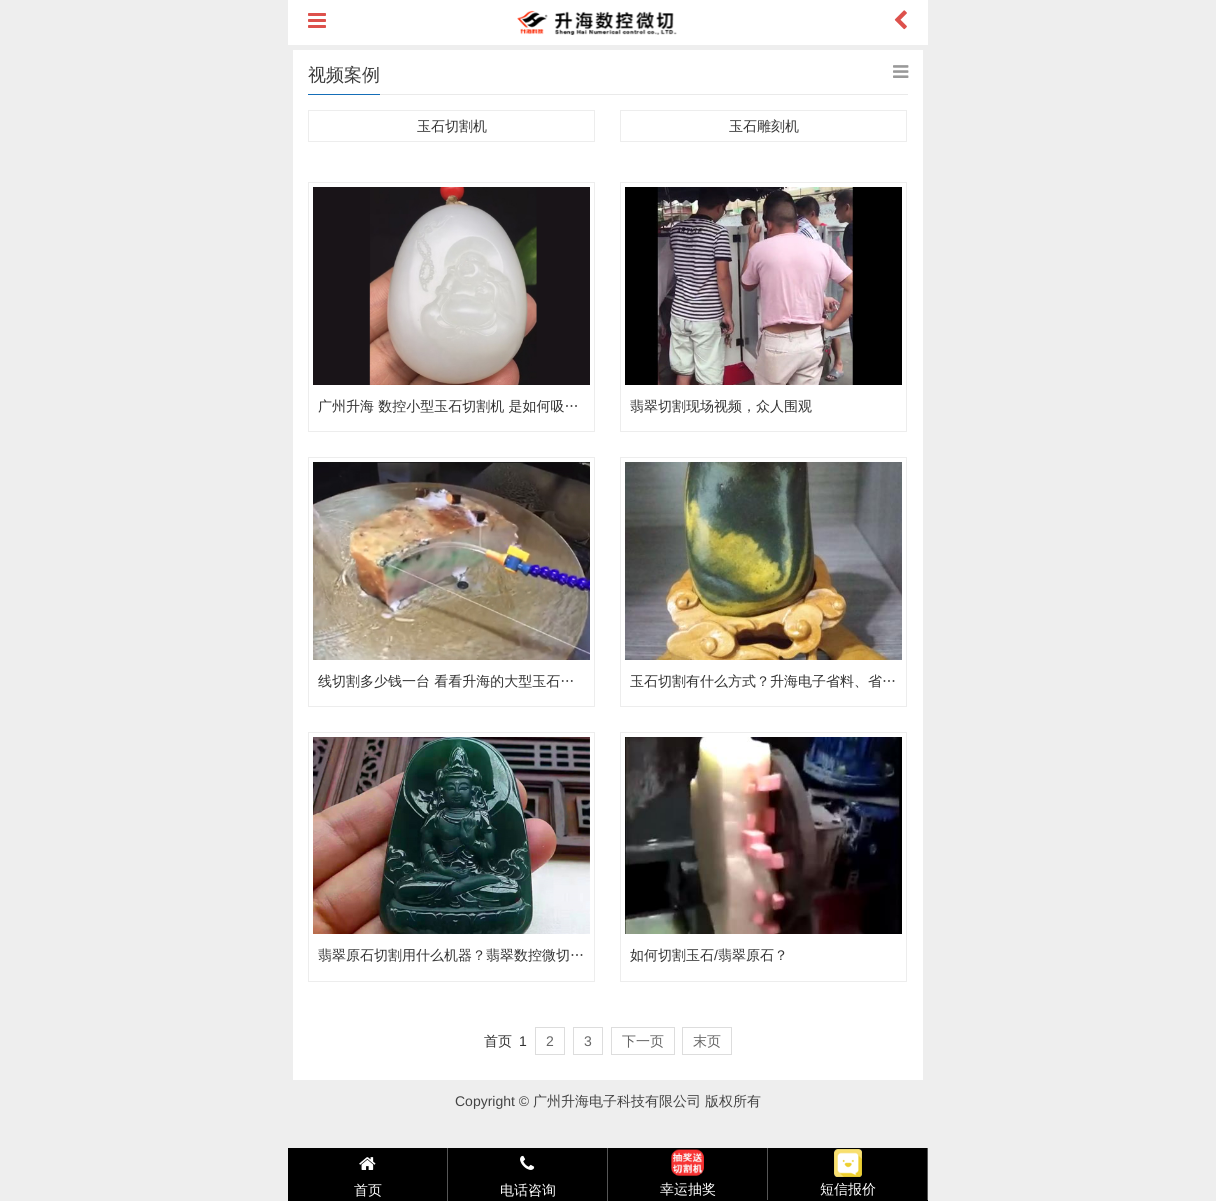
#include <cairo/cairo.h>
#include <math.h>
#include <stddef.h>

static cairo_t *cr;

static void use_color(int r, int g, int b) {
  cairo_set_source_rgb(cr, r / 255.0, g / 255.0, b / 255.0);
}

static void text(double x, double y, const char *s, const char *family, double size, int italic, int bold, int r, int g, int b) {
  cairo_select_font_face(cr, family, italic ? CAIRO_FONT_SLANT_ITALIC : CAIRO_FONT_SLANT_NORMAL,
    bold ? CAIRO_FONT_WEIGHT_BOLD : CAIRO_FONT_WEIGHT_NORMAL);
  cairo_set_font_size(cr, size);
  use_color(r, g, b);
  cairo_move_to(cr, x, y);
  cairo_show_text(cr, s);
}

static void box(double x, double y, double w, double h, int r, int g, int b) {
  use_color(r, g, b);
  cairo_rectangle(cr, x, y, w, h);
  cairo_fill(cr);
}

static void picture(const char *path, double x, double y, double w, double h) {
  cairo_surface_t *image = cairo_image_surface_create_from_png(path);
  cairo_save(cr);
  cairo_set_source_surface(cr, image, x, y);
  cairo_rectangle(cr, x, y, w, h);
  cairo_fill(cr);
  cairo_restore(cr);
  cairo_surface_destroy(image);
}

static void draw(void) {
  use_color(238, 238, 238);
  cairo_paint(cr);
  box(288, 0, 640, 45, 255, 255, 255);
  picture("img_01.png", 308, 13, 18, 15);
  picture("img_02.png", 517, 10, 160, 25);
  picture("img_03.png", 894, 10, 13, 20);
  box(293, 50, 630, 1030, 255, 255, 255);
  box(380, 94, 528, 1, 234, 234, 234);
  box(308, 94, 72, 1, 21, 110, 184);
  picture("img_04.png", 893, 65, 16, 13);
  cairo_rectangle(cr, 308.5, 110.5, 286, 31);
  use_color(237, 237, 237);
  cairo_set_line_width(cr, 1);
  cairo_stroke(cr);
  cairo_rectangle(cr, 620.5, 110.5, 286, 31);
  cairo_stroke(cr);
  cairo_rectangle(cr, 308.5, 182.5, 286, 249);
  cairo_stroke(cr);
  picture("img_05.png", 313, 187, 277, 198);
  cairo_rectangle(cr, 620.5, 182.5, 286, 249);
  cairo_stroke(cr);
  picture("img_06.png", 625, 187, 277, 198);
  cairo_rectangle(cr, 308.5, 457.5, 286, 249);
  cairo_stroke(cr);
  picture("img_07.png", 313, 462, 277, 198);
  cairo_rectangle(cr, 620.5, 457.5, 286, 249);
  cairo_stroke(cr);
  picture("img_08.png", 625, 462, 277, 198);
  cairo_rectangle(cr, 308.5, 732.5, 286, 249);
  cairo_stroke(cr);
  picture("img_09.png", 313, 737, 277, 197);
  cairo_rectangle(cr, 620.5, 732.5, 286, 249);
  cairo_stroke(cr);
  picture("img_10.png", 625, 737, 277, 197);
  cairo_rectangle(cr, 535.5, 1027.5, 29, 27);
  use_color(221, 221, 221);
  cairo_stroke(cr);
  cairo_rectangle(cr, 573.5, 1027.5, 29, 27);
  cairo_stroke(cr);
  cairo_rectangle(cr, 611.5, 1027.5, 63, 27);
  cairo_stroke(cr);
  cairo_rectangle(cr, 682.5, 1027.5, 49, 27);
  cairo_stroke(cr);
  box(288, 1148, 640, 53, 0, 0, 0);
  box(447, 1148, 1, 53, 85, 85, 85);
  picture("img_11.png", 359, 1157, 17, 13);
  box(607, 1148, 1, 53, 85, 85, 85);
  picture("img_12.png", 520, 1155, 15, 15);
  box(767, 1148, 1, 52, 85, 85, 85);
  picture("img_13.png", 671, 1149, 33, 27);
  box(927, 1148, 1, 52, 85, 85, 85);
  picture("img_14.png", 834, 1149, 28, 28);
  text(308, 81, "视频案例", "WenQuanYi Zen Hei Medium", 18, 0, 0, 59, 59, 59);
  text(417, 131, "玉石切割机", "WenQuanYi Zen Hei Medium", 14, 0, 0, 51, 51, 51);
  text(729, 131, "玉石雕刻机", "WenQuanYi Zen Hei Medium", 14, 0, 0, 51, 51, 51);
  text(318, 411, "广州升海 数控小型玉石切割机 是如何吸…", "WenQuanYi Zen Hei Medium", 14, 0, 0, 51, 51, 51);
  text(630, 411, "翡翠切割现场视频，众人围观", "WenQuanYi Zen Hei Medium", 14, 0, 0, 51, 51, 51);
  text(318, 686, "线切割多少钱一台 看看升海的大型玉石…", "WenQuanYi Zen Hei Medium", 14, 0, 0, 51, 51, 51);
  text(630, 686, "玉石切割有什么方式？升海电子省料、省…", "WenQuanYi Zen Hei Medium", 14, 0, 0, 51, 51, 51);
  text(318, 960, "翡翠原石切割用什么机器？翡翠数控微切…", "WenQuanYi Zen Hei Medium", 14, 0, 0, 51, 51, 51);
  text(630, 960, "如何切割玉石", "WenQuanYi Zen Hei Medium", 14, 0, 0, 51, 51, 51);
  text(714, 960, "/", "Liberation Sans", 14, 0, 0, 51, 51, 51);
  text(718, 960, "翡翠原石？", "WenQuanYi Zen Hei Medium", 14, 0, 0, 51, 51, 51);
  text(484, 1046, "首页", "WenQuanYi Zen Hei Medium", 14, 0, 0, 51, 51, 51);
  text(519, 1046, "1", "Liberation Sans", 14, 0, 0, 51, 51, 51);
  text(546, 1046, "2", "Liberation Sans", 14, 0, 0, 102, 102, 102);
  text(584, 1046, "3", "Liberation Sans", 14, 0, 0, 102, 102, 102);
  text(622, 1046, "下一页", "WenQuanYi Zen Hei Medium", 14, 0, 0, 102, 102, 102);
  text(693, 1046, "末页", "WenQuanYi Zen Hei Medium", 14, 0, 0, 102, 102, 102);
  text(455, 1106, "Copyright ©", "Liberation Sans", 14, 0, 0, 68, 68, 68);
  text(533, 1106, "广州升海电子科技有限公司", "WenQuanYi Zen Hei Medium", 14, 0, 0, 68, 68, 68);
  text(705, 1106, "版权所有", "WenQuanYi Zen Hei Medium", 14, 0, 0, 68, 68, 68);
  text(354, 1195, "首页", "WenQuanYi Zen Hei Medium", 14, 0, 0, 255, 255, 255);
  text(500, 1195, "电话咨询", "WenQuanYi Zen Hei Medium", 14, 0, 0, 255, 255, 255);
  text(660, 1194, "幸运抽奖", "WenQuanYi Zen Hei Medium", 14, 0, 0, 255, 255, 255);
  text(820, 1194, "短信报价", "WenQuanYi Zen Hei Medium", 14, 0, 0, 255, 255, 255);
}

int main(void) {
  cairo_surface_t *surface = cairo_image_surface_create(CAIRO_FORMAT_RGB24, 1216, 1201);
  cr = cairo_create(surface);
  cairo_font_options_t *options = cairo_font_options_create();
  cairo_font_options_set_hint_metrics(options, CAIRO_HINT_METRICS_OFF);
  cairo_font_options_set_hint_style(options, CAIRO_HINT_STYLE_NONE);
  cairo_set_font_options(cr, options);
  cairo_set_miter_limit(cr, 4);
  draw();
  cairo_surface_write_to_png(surface, "out.png");
  cairo_font_options_destroy(options);
  cairo_destroy(cr);
  cairo_surface_destroy(surface);
  return 0;
}
